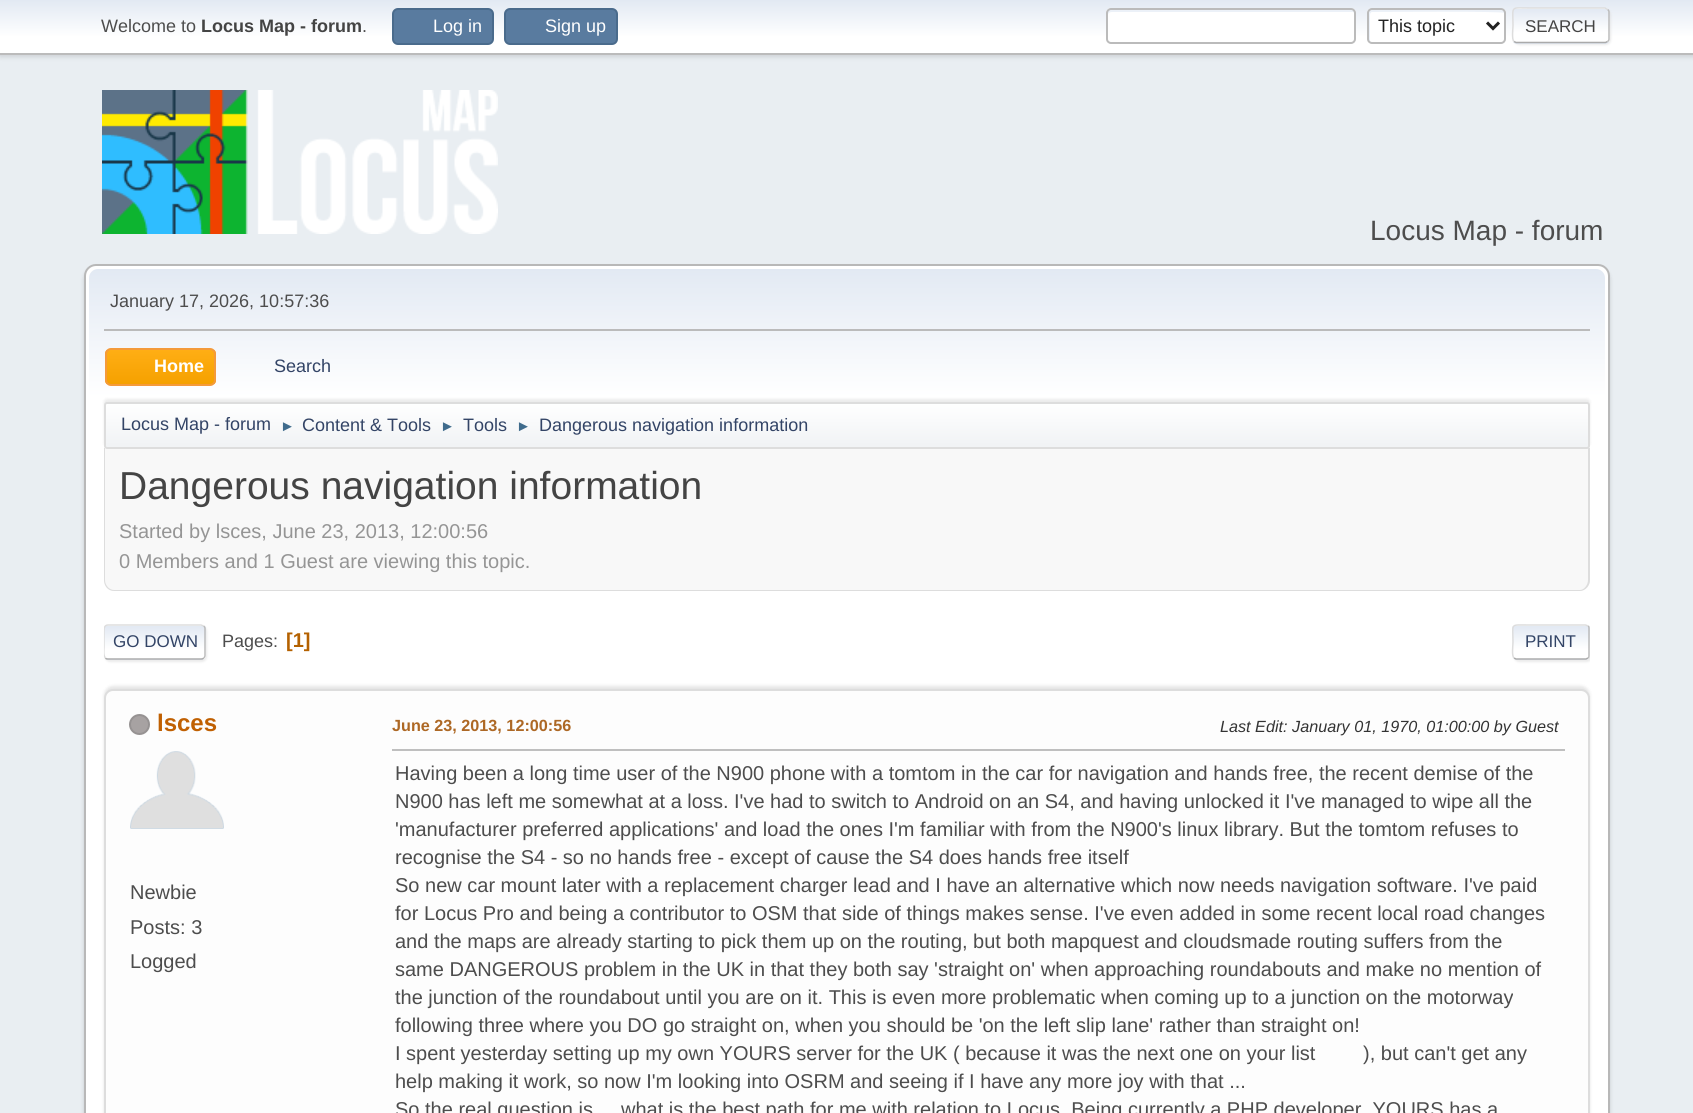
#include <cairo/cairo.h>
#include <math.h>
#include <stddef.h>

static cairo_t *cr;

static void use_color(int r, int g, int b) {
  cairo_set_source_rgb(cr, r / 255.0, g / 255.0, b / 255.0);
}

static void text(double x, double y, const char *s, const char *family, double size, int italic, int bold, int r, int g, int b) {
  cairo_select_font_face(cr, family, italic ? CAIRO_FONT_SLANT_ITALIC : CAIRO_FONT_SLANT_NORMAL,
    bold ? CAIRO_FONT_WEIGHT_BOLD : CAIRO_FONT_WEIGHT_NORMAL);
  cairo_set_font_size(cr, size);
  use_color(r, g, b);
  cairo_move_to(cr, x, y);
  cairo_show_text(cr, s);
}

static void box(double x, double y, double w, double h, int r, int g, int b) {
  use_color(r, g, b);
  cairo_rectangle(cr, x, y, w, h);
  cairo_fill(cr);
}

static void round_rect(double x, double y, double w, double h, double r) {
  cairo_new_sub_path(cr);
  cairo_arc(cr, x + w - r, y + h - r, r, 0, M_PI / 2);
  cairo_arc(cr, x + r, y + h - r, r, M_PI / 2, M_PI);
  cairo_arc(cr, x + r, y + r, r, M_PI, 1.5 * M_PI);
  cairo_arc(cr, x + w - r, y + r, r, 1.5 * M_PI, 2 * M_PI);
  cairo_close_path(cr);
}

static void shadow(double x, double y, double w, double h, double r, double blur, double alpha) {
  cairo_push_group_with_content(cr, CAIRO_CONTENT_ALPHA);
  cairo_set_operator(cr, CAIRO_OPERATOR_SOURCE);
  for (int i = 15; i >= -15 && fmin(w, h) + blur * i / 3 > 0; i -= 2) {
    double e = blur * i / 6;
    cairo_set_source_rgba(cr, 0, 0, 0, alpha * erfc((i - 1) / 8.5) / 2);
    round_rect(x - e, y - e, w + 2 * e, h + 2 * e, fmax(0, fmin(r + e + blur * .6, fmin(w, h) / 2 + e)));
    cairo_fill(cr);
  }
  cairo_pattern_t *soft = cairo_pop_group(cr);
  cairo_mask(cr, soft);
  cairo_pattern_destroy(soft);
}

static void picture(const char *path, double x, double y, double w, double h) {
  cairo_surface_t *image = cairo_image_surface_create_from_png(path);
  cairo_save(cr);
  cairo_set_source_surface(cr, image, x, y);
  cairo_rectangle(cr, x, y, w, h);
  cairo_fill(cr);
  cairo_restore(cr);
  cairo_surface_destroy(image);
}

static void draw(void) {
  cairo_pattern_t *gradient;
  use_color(233, 238, 242);
  cairo_paint(cr);
  use_color(0, 0, 0);
  shadow(0, 2, 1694, 54, 0, 3, 0.16);
  gradient = cairo_pattern_create_linear(847, 0, 847, 53);
  cairo_pattern_add_color_stop_rgba(gradient, 0, 0.886, 0.914, 0.953, 1);
  cairo_pattern_add_color_stop_rgba(gradient, 0.7, 1, 1, 1, 1);
  cairo_set_source(cr, gradient);
  cairo_pattern_destroy(gradient);
  cairo_rectangle(cr, 0, 0, 1693, 53);
  cairo_fill(cr);
  box(0, 53, 1693, 2, 187, 187, 187);
  use_color(89, 123, 159);
  round_rect(393, 9, 100, 35, 5);
  cairo_fill_preserve(cr);
  use_color(74, 107, 140);
  cairo_stroke(cr);
  use_color(89, 123, 159);
  round_rect(505, 9, 112, 35, 5);
  cairo_fill_preserve(cr);
  use_color(74, 107, 140);
  cairo_stroke(cr);
  use_color(255, 255, 255);
  round_rect(1106, 8, 250, 36, 5);
  cairo_fill(cr);
  use_color(236, 241, 248);
  cairo_new_path(cr);
  cairo_move_to(cr, 1112, 12);
  cairo_line_to(cr, 1353, 12);
  cairo_line_to(cr, 1355, 13);
  cairo_line_to(cr, 1355, 12);
  cairo_curve_to(cr, 1355, 10, 1354, 9, 1352, 9);
  cairo_line_to(cr, 1110, 9);
  cairo_curve_to(cr, 1108, 9, 1107, 10, 1107, 12);
  cairo_line_to(cr, 1107, 39);
  cairo_curve_to(cr, 1107, 40, 1107, 41, 1108, 41);
  cairo_line_to(cr, 1108, 15);
  cairo_curve_to(cr, 1108, 13, 1110, 12, 1112, 12);
  cairo_close_path(cr);
  cairo_fill(cr);
  round_rect(1107, 9, 248, 34, 4);
  use_color(187, 187, 187);
  cairo_stroke(cr);
  use_color(255, 255, 255);
  round_rect(1367, 8, 139, 36, 5);
  cairo_fill(cr);
  use_color(236, 241, 248);
  cairo_new_path(cr);
  cairo_move_to(cr, 1372, 12);
  cairo_curve_to(cr, 1385, 12, 1503, 11, 1505, 13);
  cairo_line_to(cr, 1505, 12);
  cairo_curve_to(cr, 1505, 10, 1504, 9, 1502, 9);
  cairo_line_to(cr, 1371, 9);
  cairo_curve_to(cr, 1369, 9, 1368, 10, 1368, 12);
  cairo_line_to(cr, 1368, 39);
  cairo_curve_to(cr, 1368, 40, 1369, 41, 1370, 42);
  cairo_line_to(cr, 1370, 15);
  cairo_curve_to(cr, 1370, 13, 1371, 12, 1372, 12);
  cairo_close_path(cr);
  cairo_fill(cr);
  round_rect(1368, 9, 137, 34, 4);
  use_color(187, 187, 187);
  cairo_stroke(cr);
  cairo_new_path(cr);
  cairo_move_to(cr, 1487, 22.5);
  cairo_line_to(cr, 1493, 28.5);
  cairo_line_to(cr, 1499, 22.5);
  use_color(34, 34, 34);
  cairo_set_line_width(cr, 3);
  cairo_stroke(cr);
  use_color(221, 221, 221);
  shadow(1514, 9, 97, 36, 5, 1, 0.57);
  cairo_save(cr);
  round_rect(1512, 8, 98, 36, 5);
  cairo_clip(cr);
  gradient = cairo_pattern_create_linear(1561, -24, 1561, 9);
  cairo_pattern_add_color_stop_rgba(gradient, 0, 0.886, 0.914, 0.953, 1);
  cairo_pattern_add_color_stop_rgba(gradient, 0.7, 1, 1, 1, 1);
  cairo_set_source(cr, gradient);
  cairo_pattern_destroy(gradient);
  cairo_rectangle(cr, 1512, 8, 98, 1);
  cairo_fill(cr);
  gradient = cairo_pattern_create_linear(1561, 9, 1561, 42);
  cairo_pattern_add_color_stop_rgba(gradient, 0, 0.886, 0.914, 0.953, 1);
  cairo_pattern_add_color_stop_rgba(gradient, 0.7, 1, 1, 1, 1);
  cairo_set_source(cr, gradient);
  cairo_pattern_destroy(gradient);
  cairo_rectangle(cr, 1512, 9, 98, 33);
  cairo_fill(cr);
  gradient = cairo_pattern_create_linear(1561, 42, 1561, 75);
  cairo_pattern_add_color_stop_rgba(gradient, 0, 0.886, 0.914, 0.953, 1);
  cairo_pattern_add_color_stop_rgba(gradient, 0.7, 1, 1, 1, 1);
  cairo_set_source(cr, gradient);
  cairo_pattern_destroy(gradient);
  cairo_rectangle(cr, 1512, 42, 98, 2);
  cairo_fill(cr);
  cairo_restore(cr);
  cairo_new_path(cr);
  cairo_move_to(cr, 1607.5, 9.5);
  cairo_curve_to(cr, 1608.5, 10, 1609, 11, 1609, 12);
  cairo_line_to(cr, 1609, 39);
  cairo_curve_to(cr, 1609, 40, 1608.5, 41, 1607.5, 41.5);
  use_color(187, 187, 187);
  cairo_set_line_width(cr, 1.5);
  cairo_stroke(cr);
  cairo_new_path(cr);
  cairo_move_to(cr, 1607.5, 41.5);
  cairo_line_to(cr, 1605.5, 42.5);
  cairo_line_to(cr, 1516, 42.5);
  cairo_line_to(cr, 1514, 41.5);
  use_color(170, 170, 170);
  cairo_stroke(cr);
  cairo_new_path(cr);
  cairo_move_to(cr, 1514, 41.5);
  cairo_curve_to(cr, 1511.5, 39.5, 1513, 28.5, 1513, 25.5);
  cairo_curve_to(cr, 1513, 5, 1509.5, 8, 1531, 8);
  cairo_line_to(cr, 1605, 8);
  cairo_line_to(cr, 1607.5, 9.5);
  use_color(221, 221, 221);
  cairo_stroke(cr);
  picture("img_01.png", 102, 90, 396, 144);
  use_color(0, 0, 0);
  shadow(84, 267, 1526, 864, 12, 2, 0.14);
  use_color(255, 255, 255);
  round_rect(85, 265, 1524, 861, 11);
  cairo_fill_preserve(cr);
  use_color(184, 184, 184);
  cairo_set_line_width(cr, 2);
  cairo_stroke(cr);
  gradient = cairo_pattern_create_linear(847, 268, 847, 452);
  cairo_pattern_add_color_stop_rgba(gradient, 0, 0.886, 0.914, 0.953, 1);
  cairo_pattern_add_color_stop_rgba(gradient, 0.7, 1, 1, 1, 1);
  cairo_set_source(cr, gradient);
  cairo_pattern_destroy(gradient);
  cairo_new_path(cr);
  cairo_move_to(cr, 98, 269);
  cairo_line_to(cr, 1596, 269);
  cairo_curve_to(cr, 1601, 269, 1605, 273, 1605, 278);
  cairo_line_to(cr, 1605, 452);
  cairo_line_to(cr, 89, 452);
  cairo_line_to(cr, 89, 278);
  cairo_curve_to(cr, 89, 273, 93, 269, 98, 269);
  cairo_close_path(cr);
  cairo_fill(cr);
  box(104, 329, 1486, 2, 187, 187, 187);
  cairo_save(cr);
  round_rect(105, 348, 111, 38, 6);
  cairo_clip(cr);
  gradient = cairo_pattern_create_linear(161, 350, 161, 384);
  cairo_pattern_add_color_stop_rgba(gradient, 0, 1, 0.682, 0.078, 1);
  cairo_pattern_add_color_stop_rgba(gradient, 1, 0.961, 0.631, 0, 1);
  cairo_set_source(cr, gradient);
  cairo_pattern_destroy(gradient);
  cairo_rectangle(cr, 105, 350, 111, 34);
  cairo_fill(cr);
  cairo_restore(cr);
  round_rect(106, 349, 109, 36, 5);
  use_color(244, 154, 58);
  cairo_stroke(cr);
  use_color(0, 0, 0);
  shadow(104, 399, 1486, 47, 3, 1.5, 0.08);
  cairo_save(cr);
  round_rect(104, 402, 1486, 47, 3);
  cairo_clip(cr);
  gradient = cairo_pattern_create_linear(847, 403, 847, 447);
  cairo_pattern_add_color_stop_rgba(gradient, 0, 1, 1, 1, 1);
  cairo_pattern_add_color_stop_rgba(gradient, 0.95, 0.945, 0.953, 0.961, 1);
  cairo_set_source(cr, gradient);
  cairo_pattern_destroy(gradient);
  cairo_rectangle(cr, 104, 404, 1486, 43);
  cairo_fill(cr);
  cairo_restore(cr);
  round_rect(105, 403, 1484, 45, 2);
  use_color(221, 221, 221);
  cairo_stroke(cr);
  use_color(248, 248, 248);
  cairo_new_path(cr);
  cairo_move_to(cr, 104, 449);
  cairo_line_to(cr, 1590, 449);
  cairo_line_to(cr, 1590, 580);
  cairo_curve_to(cr, 1590, 586, 1585, 591, 1579, 591);
  cairo_line_to(cr, 115, 591);
  cairo_curve_to(cr, 109, 591, 104, 586, 104, 580);
  cairo_close_path(cr);
  cairo_fill(cr);
  use_color(221, 221, 221);
  cairo_set_fill_rule(cr, CAIRO_FILL_RULE_EVEN_ODD);
  cairo_new_path(cr);
  cairo_move_to(cr, 104, 448);
  cairo_line_to(cr, 1590, 448);
  cairo_line_to(cr, 1590, 580);
  cairo_curve_to(cr, 1590, 586, 1585, 591, 1580, 591);
  cairo_line_to(cr, 114, 591);
  cairo_curve_to(cr, 108, 591, 104, 586, 104, 580);
  cairo_close_path(cr);
  cairo_move_to(cr, 105, 448);
  cairo_line_to(cr, 1588, 448);
  cairo_line_to(cr, 1588, 580);
  cairo_curve_to(cr, 1588, 585, 1584, 590, 1580, 590);
  cairo_line_to(cr, 114, 590);
  cairo_curve_to(cr, 109, 590, 105, 585, 105, 580);
  cairo_close_path(cr);
  cairo_fill(cr);
  use_color(221, 221, 221);
  shadow(105, 626, 102, 36, 5, 1, 0.57);
  use_color(255, 255, 255);
  round_rect(104, 624, 102, 36, 5);
  cairo_fill(cr);
  cairo_save(cr);
  cairo_set_fill_rule(cr, CAIRO_FILL_RULE_WINDING);
  round_rect(104, 624, 102, 36, 5);
  cairo_clip(cr);
  gradient = cairo_pattern_create_linear(155, 626, 155, 659);
  cairo_pattern_add_color_stop_rgba(gradient, 0, 0.886, 0.914, 0.953, 1);
  cairo_pattern_add_color_stop_rgba(gradient, 0.7, 1, 1, 1, 1);
  cairo_set_source(cr, gradient);
  cairo_pattern_destroy(gradient);
  cairo_rectangle(cr, 104, 626, 102, 33);
  cairo_fill(cr);
  gradient = cairo_pattern_create_linear(155, 659, 155, 692);
  cairo_pattern_add_color_stop_rgba(gradient, 0, 0.886, 0.914, 0.953, 1);
  cairo_pattern_add_color_stop_rgba(gradient, 0.7, 1, 1, 1, 1);
  cairo_set_source(cr, gradient);
  cairo_pattern_destroy(gradient);
  cairo_rectangle(cr, 104, 659, 102, 1);
  cairo_fill(cr);
  cairo_restore(cr);
  cairo_new_path(cr);
  cairo_move_to(cr, 203.5, 626);
  cairo_curve_to(cr, 204.5, 626.5, 205, 627.5, 205, 628.5);
  cairo_line_to(cr, 205, 655.5);
  cairo_curve_to(cr, 205, 656.5, 204.5, 657.5, 203.5, 658);
  use_color(187, 187, 187);
  cairo_set_line_width(cr, 1.5);
  cairo_stroke(cr);
  cairo_new_path(cr);
  cairo_move_to(cr, 203.5, 658);
  cairo_curve_to(cr, 203, 659, 202, 659, 201, 659);
  cairo_line_to(cr, 108, 659);
  cairo_curve_to(cr, 107, 659, 106, 659, 105.5, 658);
  use_color(170, 170, 170);
  cairo_stroke(cr);
  cairo_save(cr);
  cairo_set_fill_rule(cr, CAIRO_FILL_RULE_WINDING);
  cairo_rectangle(cr, 104, 614, 1486, 57);
  cairo_clip(cr);
  cairo_new_path(cr);
  cairo_move_to(cr, 105.5, 658);
  cairo_curve_to(cr, 103, 655.5, 104, 649.5, 104, 646.5);
  cairo_line_to(cr, 104, 633);
  cairo_curve_to(cr, 104, 630, 103.5, 625, 108, 625);
  cairo_line_to(cr, 201, 625);
  cairo_line_to(cr, 203.5, 626);
  use_color(221, 221, 221);
  cairo_stroke(cr);
  cairo_restore(cr);
  cairo_save(cr);
  cairo_set_fill_rule(cr, CAIRO_FILL_RULE_WINDING);
  cairo_rectangle(cr, 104, 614, 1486, 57);
  cairo_clip(cr);
  use_color(221, 221, 221);
  shadow(1514, 626, 78, 36, 5, 1, 0.57);
  cairo_restore(cr);
  use_color(255, 255, 255);
  round_rect(1512, 624, 78, 36, 5);
  cairo_fill(cr);
  cairo_save(cr);
  cairo_set_fill_rule(cr, CAIRO_FILL_RULE_WINDING);
  round_rect(1512, 624, 78, 36, 5);
  cairo_clip(cr);
  gradient = cairo_pattern_create_linear(1551, 626, 1551, 659);
  cairo_pattern_add_color_stop_rgba(gradient, 0, 0.886, 0.914, 0.953, 1);
  cairo_pattern_add_color_stop_rgba(gradient, 0.7, 1, 1, 1, 1);
  cairo_set_source(cr, gradient);
  cairo_pattern_destroy(gradient);
  cairo_rectangle(cr, 1512, 626, 78, 33);
  cairo_fill(cr);
  gradient = cairo_pattern_create_linear(1551, 659, 1551, 692);
  cairo_pattern_add_color_stop_rgba(gradient, 0, 0.886, 0.914, 0.953, 1);
  cairo_pattern_add_color_stop_rgba(gradient, 0.7, 1, 1, 1, 1);
  cairo_set_source(cr, gradient);
  cairo_pattern_destroy(gradient);
  cairo_rectangle(cr, 1512, 659, 78, 1);
  cairo_fill(cr);
  cairo_restore(cr);
  cairo_new_path(cr);
  cairo_move_to(cr, 1588, 626);
  cairo_curve_to(cr, 1589, 626.5, 1589, 627.5, 1589, 628.5);
  cairo_line_to(cr, 1589, 655.5);
  cairo_curve_to(cr, 1589, 656.5, 1589, 657.5, 1588, 658);
  use_color(187, 187, 187);
  cairo_stroke(cr);
  cairo_new_path(cr);
  cairo_move_to(cr, 1588, 658);
  cairo_line_to(cr, 1586, 659);
  cairo_line_to(cr, 1516, 659);
  cairo_line_to(cr, 1514, 658);
  use_color(170, 170, 170);
  cairo_stroke(cr);
  cairo_new_path(cr);
  cairo_move_to(cr, 1514, 658);
  cairo_curve_to(cr, 1511.5, 656, 1513, 645, 1513, 642);
  cairo_curve_to(cr, 1513, 623, 1509.5, 625, 1528, 625);
  cairo_line_to(cr, 1585.5, 625);
  cairo_line_to(cr, 1588, 626);
  use_color(221, 221, 221);
  cairo_stroke(cr);
  use_color(0, 0, 0);
  shadow(104, 686, 1486, 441, 9, 1.5, 0.1);
  use_color(253, 253, 253);
  round_rect(105, 690, 1484, 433, 8);
  cairo_fill_preserve(cr);
  use_color(221, 221, 221);
  cairo_set_line_width(cr, 2);
  cairo_stroke(cr);
  use_color(167, 162, 162);
  cairo_arc(cr, 139.5, 724.5, 9.5, 0, 2 * M_PI);
  cairo_fill_preserve(cr);
  use_color(150, 146, 146);
  cairo_stroke(cr);
  picture("img_02.png", 130, 751, 94, 78);
  box(392, 749, 1173, 2, 191, 191, 191);
  text(101, 32, "Welcome to", "Liberation Sans", 18, 0, 0, 77, 77, 77);
  text(201, 32, "Locus Map - forum", "Liberation Sans", 18, 0, 1, 68, 68, 68);
  text(362, 32, ".", "Liberation Sans", 18, 0, 0, 77, 77, 77);
  text(433, 32, "Log in", "Liberation Sans", 18, 0, 0, 255, 255, 255);
  text(545, 32, "Sign up", "Liberation Sans", 18, 0, 0, 255, 255, 255);
  text(1378, 32, "This topic", "Liberation Sans", 18, 0, 0, 34, 34, 34);
  text(1525, 32, "SEARCH", "Liberation Sans", 17, 0, 0, 68, 68, 68);
  text(1370, 240, "Locus Map - forum", "Liberation Sans", 28, 0, 0, 77, 77, 77);
  text(110, 307, "January 17, 2026, 10:57:36", "Liberation Sans", 18, 0, 0, 77, 77, 77);
  text(154, 372, "Home", "Liberation Sans", 18, 0, 1, 255, 255, 255);
  text(274, 372, "Search", "Liberation Sans", 18, 0, 0, 51, 68, 102);
  text(121, 430, "Locus Map - forum", "Liberation Sans", 18, 0, 0, 51, 68, 102);
  text(280, 431, "►", "Liberation Sans", 15, 0, 0, 63, 107, 140);
  text(302, 431, "Content & Tools", "Liberation Sans", 18, 0, 0, 51, 68, 102);
  text(440, 431, "►", "Liberation Sans", 15, 0, 0, 63, 107, 140);
  text(463, 431, "Tools", "Liberation Sans", 18, 0, 0, 51, 68, 102);
  text(516, 431, "►", "Liberation Sans", 15, 0, 0, 63, 107, 140);
  text(539, 431, "Dangerous navigation information", "Liberation Sans", 18, 0, 0, 51, 68, 102);
  text(119, 499, "Dangerous navigation information", "Liberation Sans", 39, 0, 0, 68, 68, 68);
  text(119, 538, "Started by lsces, June 23, 2013, 12:00:56", "Liberation Sans", 20, 0, 0, 149, 149, 149);
  text(119, 568, "0 Members and 1 Guest are viewing this topic.", "Liberation Sans", 20, 0, 0, 149, 149, 149);
  text(113, 647, "GO DOWN", "Liberation Sans", 17, 0, 0, 51, 68, 102);
  text(222, 647, "Pages:", "Liberation Sans", 18, 0, 0, 77, 77, 77);
  text(286, 647, "[1]", "Liberation Sans", 20, 0, 1, 180, 97, 0);
  text(1525, 647, "PRINT", "Liberation Sans", 17, 0, 0, 51, 68, 102);
  text(157, 731, "lsces", "Liberation Sans", 24, 0, 1, 192, 96, 2);
  text(130, 899, "Newbie", "Liberation Sans", 20, 0, 0, 77, 77, 77);
  text(130, 934, "Posts: 3", "Liberation Sans", 20, 0, 0, 77, 77, 77);
  text(130, 968, "Logged", "Liberation Sans", 20, 0, 0, 77, 77, 77);
  text(392, 731, "June 23, 2013, 12:00:56", "Liberation Sans", 16.2, 0, 1, 173, 104, 37);
  text(1220, 732, "Last Edit: January 01, 1970, 01:00:00 by Guest", "Liberation Sans", 16.2, 1, 0, 51, 51, 51);
  text(395, 780, "Having been a long time user of the N900 phone with a tomtom in the car for navigation and hands free, the recent demise of the", "Liberation Sans", 20, 0, 0, 77, 77, 77);
  text(395, 808, "N900 has left me somewhat at a loss. I've had to switch to Android on an S4, and having unlocked it I've managed to wipe all the", "Liberation Sans", 20, 0, 0, 77, 77, 77);
  text(395, 836, "'manufacturer preferred applications' and load the ones I'm familiar with from the N900's linux library. But the tomtom refuses to", "Liberation Sans", 20, 0, 0, 77, 77, 77);
  text(395, 864, "recognise the S4 - so no hands free - except of cause the S4 does hands free itself", "Liberation Sans", 20, 0, 0, 77, 77, 77);
  text(395, 892, "So new car mount later with a replacement charger lead and I have an alternative which now needs navigation software. I've paid", "Liberation Sans", 20, 0, 0, 77, 77, 77);
  text(395, 920, "for Locus Pro and being a contributor to OSM that side of things makes sense. I've even added in some recent local road changes", "Liberation Sans", 20, 0, 0, 77, 77, 77);
  text(395, 948, "and the maps are already starting to pick them up on the routing, but both mapquest and cloudsmade routing suffers from the", "Liberation Sans", 20, 0, 0, 77, 77, 77);
  text(395, 976, "same DANGEROUS problem in the UK in that they both say 'straight on' when approaching roundabouts and make no mention of", "Liberation Sans", 20, 0, 0, 77, 77, 77);
  text(395, 1004, "the junction of the roundabout until you are on it. This is even more problematic when coming up to a junction on the motorway", "Liberation Sans", 20, 0, 0, 77, 77, 77);
  text(395, 1032, "following three where you DO go straight on, when you should be 'on the left slip lane' rather than straight on!", "Liberation Sans", 20, 0, 0, 77, 77, 77);
  text(395, 1060, "I spent yesterday setting up my own YOURS server for the UK ( because it was the next one on your list", "Liberation Sans", 20, 0, 0, 77, 77, 77);
  text(1363, 1060, "), but can't get any", "Liberation Sans", 20, 0, 0, 77, 77, 77);
  text(395, 1088, "help making it work, so now I'm looking into OSRM and seeing if I have any more joy with that ...", "Liberation Sans", 20, 0, 0, 77, 77, 77);
  text(395, 1116, "So the real question is", "Liberation Sans", 20, 0, 0, 77, 77, 77);
  text(621, 1116, "what is the best path for me with relation to Locus. Being currently a PHP developer, YOURS has a", "Liberation Sans", 20, 0, 0, 77, 77, 77);
}

int main(void) {
  cairo_surface_t *surface = cairo_image_surface_create(CAIRO_FORMAT_RGB24, 1693, 1113);
  cr = cairo_create(surface);
  cairo_font_options_t *options = cairo_font_options_create();
  cairo_font_options_set_hint_metrics(options, CAIRO_HINT_METRICS_OFF);
  cairo_font_options_set_hint_style(options, CAIRO_HINT_STYLE_NONE);
  cairo_set_font_options(cr, options);
  cairo_set_miter_limit(cr, 4);
  draw();
  cairo_surface_write_to_png(surface, "out.png");
  cairo_font_options_destroy(options);
  cairo_destroy(cr);
  cairo_surface_destroy(surface);
  return 0;
}
